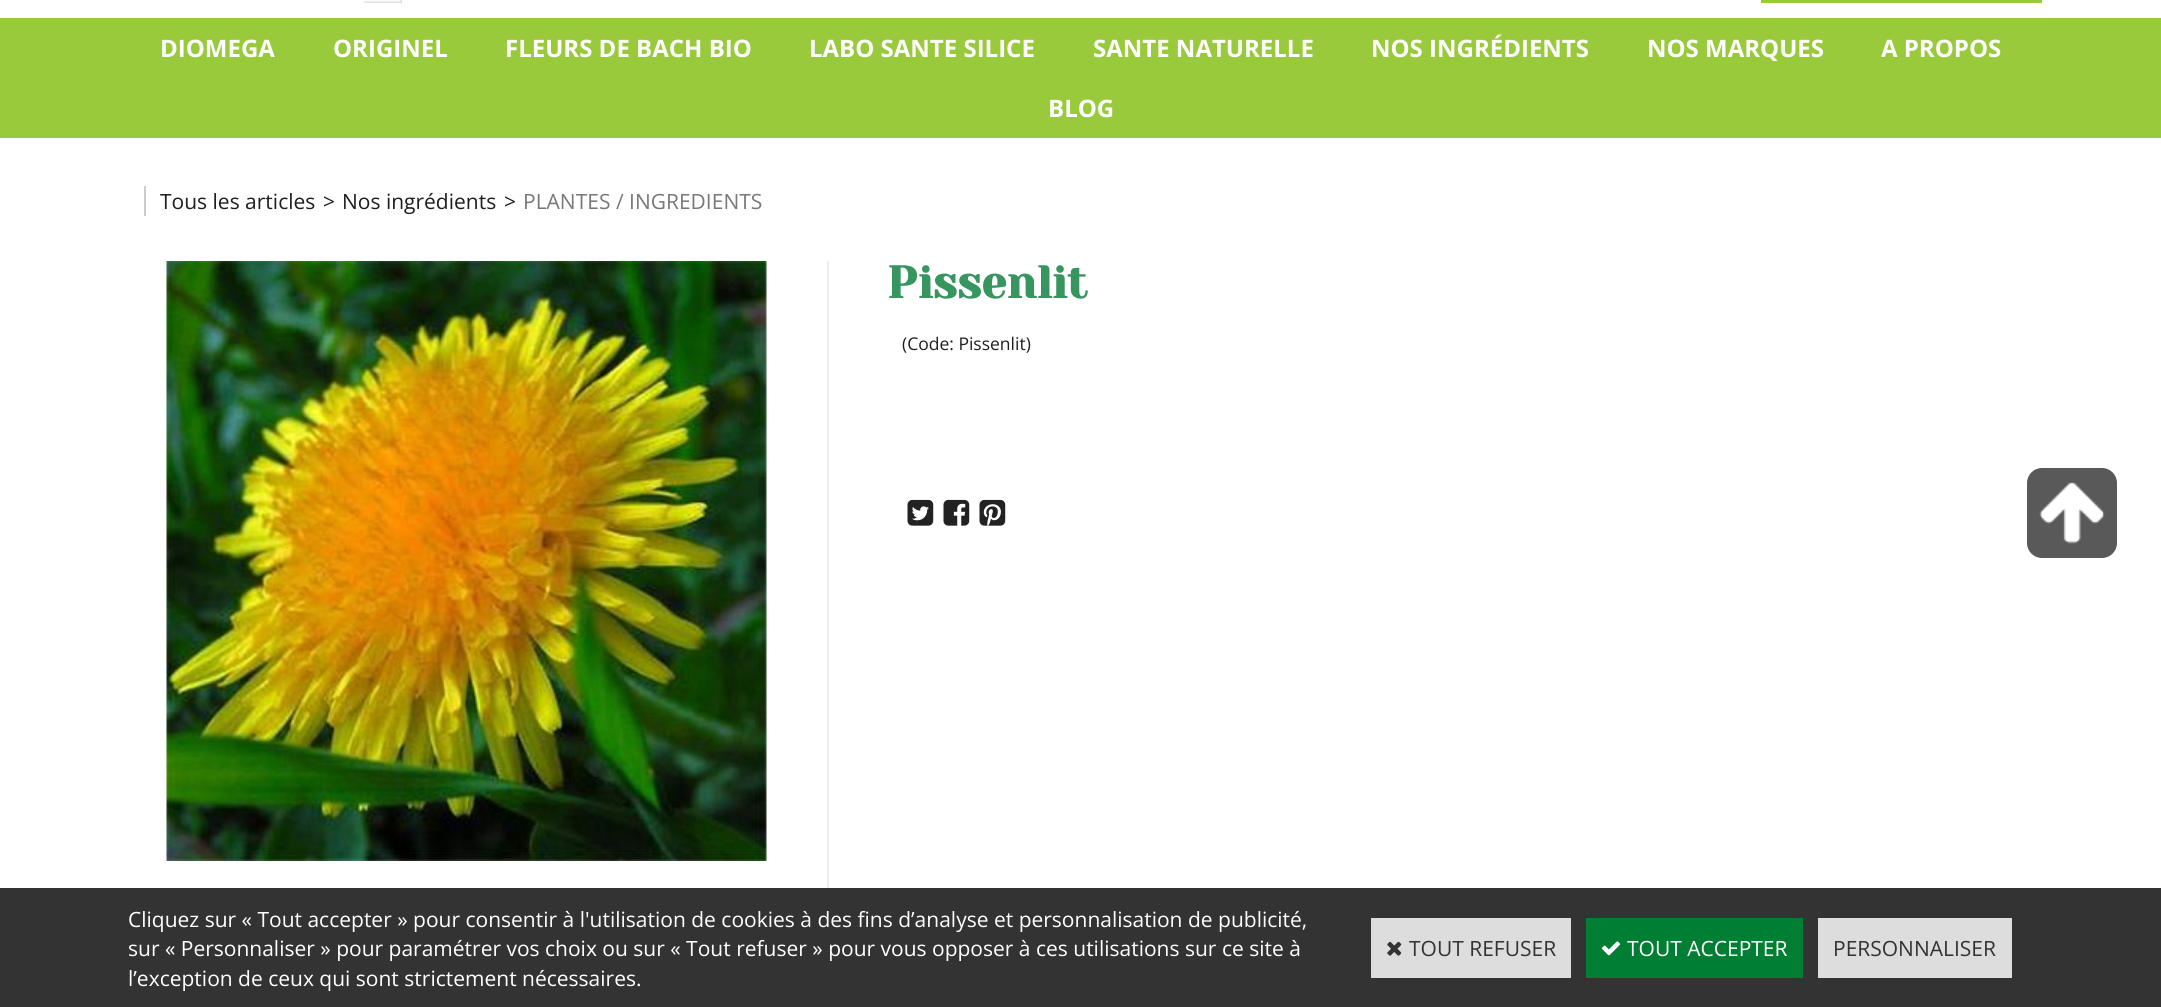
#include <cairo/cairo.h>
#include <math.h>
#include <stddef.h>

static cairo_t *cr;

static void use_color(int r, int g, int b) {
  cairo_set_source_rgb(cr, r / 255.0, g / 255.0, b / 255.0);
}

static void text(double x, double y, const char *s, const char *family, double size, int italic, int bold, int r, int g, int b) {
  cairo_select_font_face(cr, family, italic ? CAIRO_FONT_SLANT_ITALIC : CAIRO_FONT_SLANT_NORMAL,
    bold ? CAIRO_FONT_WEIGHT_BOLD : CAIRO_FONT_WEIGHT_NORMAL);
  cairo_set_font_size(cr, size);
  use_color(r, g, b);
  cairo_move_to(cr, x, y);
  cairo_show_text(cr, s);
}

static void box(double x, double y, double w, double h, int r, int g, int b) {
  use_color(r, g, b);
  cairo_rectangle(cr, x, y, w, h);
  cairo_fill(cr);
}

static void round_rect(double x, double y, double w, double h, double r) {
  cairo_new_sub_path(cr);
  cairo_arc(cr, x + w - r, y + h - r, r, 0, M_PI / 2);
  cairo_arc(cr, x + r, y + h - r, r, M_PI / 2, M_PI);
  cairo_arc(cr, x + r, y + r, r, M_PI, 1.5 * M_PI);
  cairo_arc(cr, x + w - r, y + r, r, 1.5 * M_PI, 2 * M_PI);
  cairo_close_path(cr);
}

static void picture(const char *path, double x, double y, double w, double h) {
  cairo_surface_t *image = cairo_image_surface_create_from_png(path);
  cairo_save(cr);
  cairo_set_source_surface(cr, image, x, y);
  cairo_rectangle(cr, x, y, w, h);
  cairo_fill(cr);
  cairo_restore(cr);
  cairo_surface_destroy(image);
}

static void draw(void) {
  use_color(255, 255, 255);
  cairo_paint(cr);
  picture("img_01.png", 363, 0, 39, 3);
  box(1761, 0, 281, 3, 153, 202, 60);
  box(0, 18, 2161, 120, 153, 202, 60);
  box(144, 186, 2, 30, 204, 204, 204);
  box(827, 261, 2, 627, 238, 238, 238);
  picture("img_02.png", 166, 261, 601, 600);
  picture("img_03.png", 907, 499, 27, 27);
  picture("img_04.png", 943, 499, 27, 27);
  picture("img_05.png", 979, 499, 27, 27);
  use_color(89, 89, 89);
  round_rect(2027, 468, 90, 90, 15);
  cairo_fill(cr);
  picture("img_06.png", 2039, 482, 66, 62);
  box(0, 888, 2161, 119, 51, 51, 51);
  box(1371, 918, 200, 60, 221, 221, 221);
  picture("img_07.png", 1387, 941, 15, 15);
  box(1586, 918, 217, 60, 0, 126, 51);
  picture("img_08.png", 1601, 941, 20, 15);
  box(1818, 918, 194, 60, 221, 221, 221);
  text(160, 57, "DIOMEGA", "Open Sans", 24, 0, 1, 255, 255, 255);
  text(333, 57, "ORIGINEL", "Open Sans", 24, 0, 1, 255, 255, 255);
  text(505, 57, "FLEURS DE BACH BIO", "Open Sans", 24, 0, 1, 255, 255, 255);
  text(809, 57, "LABO SANTE SILICE", "Open Sans", 24, 0, 1, 255, 255, 255);
  text(1093, 57, "SANTE NATURELLE", "Open Sans", 24, 0, 1, 255, 255, 255);
  text(1371, 57, "NOS INGRÉDIENTS", "Open Sans", 24, 0, 1, 255, 255, 255);
  text(1647, 57, "NOS MARQUES", "Open Sans", 24, 0, 1, 255, 255, 255);
  text(1881, 57, "A PROPOS", "Open Sans", 24, 0, 1, 255, 255, 255);
  text(1048, 117, "BLOG", "Open Sans", 24, 0, 1, 255, 255, 255);
  text(160, 209, "Tous les articles", "Open Sans", 21, 0, 0, 30, 30, 30);
  text(323, 209, ">", "Open Sans", 21, 0, 0, 30, 30, 30);
  text(342, 209, "Nos ingrédients", "Open Sans", 21, 0, 0, 30, 30, 30);
  text(504, 209, ">", "Open Sans", 21, 0, 0, 30, 30, 30);
  text(523, 209, "PLANTES / INGREDIENTS", "Open Sans", 21, 0, 0, 122, 119, 119);
  text(887, 298, "Pissenlit", "Yeseva One", 45, 0, 1, 55, 149, 96);
  text(902, 350, "(Code: Pissenlit)", "Open Sans", 17.5, 0, 0, 30, 30, 30);
  text(128, 927, "Cliquez sur « Tout accepter » pour consentir à l'utilisation de cookies à des fins d’analyse et personnalisation de publicité,", "Open Sans", 21, 0, 0, 255, 255, 255);
  text(128, 956, "sur « Personnaliser » pour paramétrer vos choix ou sur « Tout refuser » pour vous opposer à ces utilisations sur ce site à", "Open Sans", 21, 0, 0, 255, 255, 255);
  text(128, 986, "l’exception de ceux qui sont strictement nécessaires.", "Open Sans", 21, 0, 0, 255, 255, 255);
  text(1409, 956, "TOUT REFUSER", "Open Sans", 21, 0, 0, 51, 51, 51);
  text(1627, 956, "TOUT ACCEPTER", "Open Sans", 21, 0, 0, 255, 255, 255);
  text(1833, 956, "PERSONNALISER", "Open Sans", 21, 0, 0, 51, 51, 51);
}

int main(void) {
  cairo_surface_t *surface = cairo_image_surface_create(CAIRO_FORMAT_RGB24, 2161, 1007);
  cr = cairo_create(surface);
  cairo_font_options_t *options = cairo_font_options_create();
  cairo_font_options_set_hint_metrics(options, CAIRO_HINT_METRICS_OFF);
  cairo_font_options_set_hint_style(options, CAIRO_HINT_STYLE_NONE);
  cairo_set_font_options(cr, options);
  cairo_set_miter_limit(cr, 4);
  draw();
  cairo_surface_write_to_png(surface, "out.png");
  cairo_font_options_destroy(options);
  cairo_destroy(cr);
  cairo_surface_destroy(surface);
  return 0;
}
